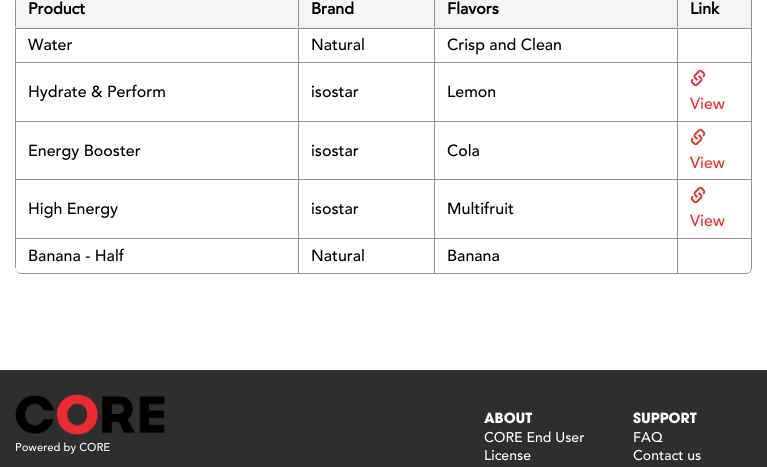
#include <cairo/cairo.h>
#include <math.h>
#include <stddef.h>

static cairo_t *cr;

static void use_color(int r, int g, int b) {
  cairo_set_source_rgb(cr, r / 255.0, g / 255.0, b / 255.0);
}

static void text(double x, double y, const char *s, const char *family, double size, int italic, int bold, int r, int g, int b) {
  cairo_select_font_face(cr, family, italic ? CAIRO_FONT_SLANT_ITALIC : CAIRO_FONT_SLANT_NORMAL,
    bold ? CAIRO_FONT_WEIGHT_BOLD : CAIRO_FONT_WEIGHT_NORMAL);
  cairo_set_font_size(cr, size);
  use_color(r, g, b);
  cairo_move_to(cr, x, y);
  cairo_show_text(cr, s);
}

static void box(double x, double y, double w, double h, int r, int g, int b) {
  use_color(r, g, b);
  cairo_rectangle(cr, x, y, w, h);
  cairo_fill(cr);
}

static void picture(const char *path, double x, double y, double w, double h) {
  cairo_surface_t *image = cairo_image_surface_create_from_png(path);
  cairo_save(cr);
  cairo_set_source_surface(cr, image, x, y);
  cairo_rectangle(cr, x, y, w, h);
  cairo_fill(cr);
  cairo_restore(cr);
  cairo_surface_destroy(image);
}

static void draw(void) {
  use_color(255, 255, 255);
  cairo_paint(cr);
  use_color(146, 148, 151);
  cairo_set_fill_rule(cr, CAIRO_FILL_RULE_EVEN_ODD);
  cairo_new_path(cr);
  cairo_move_to(cr, 21, -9);
  cairo_line_to(cr, 746, -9);
  cairo_curve_to(cr, 749, -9, 752, -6, 752, -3);
  cairo_line_to(cr, 752, 268);
  cairo_curve_to(cr, 752, 271, 749, 274, 746, 274);
  cairo_line_to(cr, 21, 274);
  cairo_curve_to(cr, 18, 274, 15, 271, 15, 268);
  cairo_line_to(cr, 15, -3);
  cairo_curve_to(cr, 15, -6, 18, -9, 21, -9);
  cairo_close_path(cr);
  cairo_move_to(cr, 21, -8);
  cairo_line_to(cr, 746, -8);
  cairo_curve_to(cr, 749, -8, 751, -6, 751, -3);
  cairo_line_to(cr, 751, 268);
  cairo_curve_to(cr, 751, 271, 749, 273, 746, 273);
  cairo_line_to(cr, 21, 273);
  cairo_curve_to(cr, 18, 273, 15, 271, 15, 268);
  cairo_line_to(cr, 15, -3);
  cairo_curve_to(cr, 15, -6, 18, -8, 21, -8);
  cairo_close_path(cr);
  cairo_fill(cr);
  box(15, 0, 736, 28, 245, 245, 245);
  use_color(236, 238, 239);
  cairo_set_fill_rule(cr, CAIRO_FILL_RULE_WINDING);
  cairo_new_path(cr);
  cairo_move_to(cr, 298, 28);
  cairo_line_to(cr, 298, 26);
  cairo_line_to(cr, 16, 26);
  cairo_line_to(cr, 15, 28);
  cairo_close_path(cr);
  cairo_fill(cr);
  use_color(146, 148, 151);
  cairo_new_path(cr);
  cairo_move_to(cr, 25, -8);
  cairo_curve_to(cr, 19, -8, 15, -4, 15, 2);
  cairo_line_to(cr, 15, 28);
  cairo_line_to(cr, 16, 26);
  cairo_line_to(cr, 16, 2);
  cairo_curve_to(cr, 16, -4, 20, -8, 25, -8);
  cairo_close_path(cr);
  cairo_fill(cr);
  use_color(236, 238, 239);
  cairo_new_path(cr);
  cairo_move_to(cr, 434, 28);
  cairo_line_to(cr, 298, 28);
  cairo_line_to(cr, 299, 26);
  cairo_line_to(cr, 434, 26);
  cairo_close_path(cr);
  cairo_fill(cr);
  use_color(146, 148, 151);
  cairo_new_path(cr);
  cairo_move_to(cr, 298, 28);
  cairo_line_to(cr, 298, -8);
  cairo_line_to(cr, 299, -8);
  cairo_line_to(cr, 299, 26);
  cairo_close_path(cr);
  cairo_fill(cr);
  use_color(236, 238, 239);
  cairo_new_path(cr);
  cairo_move_to(cr, 677, 28);
  cairo_line_to(cr, 434, 28);
  cairo_line_to(cr, 435, 26);
  cairo_line_to(cr, 677, 26);
  cairo_close_path(cr);
  cairo_fill(cr);
  use_color(146, 148, 151);
  cairo_new_path(cr);
  cairo_move_to(cr, 434, 28);
  cairo_line_to(cr, 434, -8);
  cairo_line_to(cr, 435, -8);
  cairo_line_to(cr, 435, 26);
  cairo_close_path(cr);
  cairo_fill(cr);
  use_color(236, 238, 239);
  cairo_new_path(cr);
  cairo_move_to(cr, 751, 28);
  cairo_line_to(cr, 751, 26);
  cairo_line_to(cr, 678, 26);
  cairo_line_to(cr, 677, 28);
  cairo_close_path(cr);
  cairo_fill(cr);
  use_color(146, 148, 151);
  cairo_new_path(cr);
  cairo_move_to(cr, 677, -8);
  cairo_line_to(cr, 678, -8);
  cairo_line_to(cr, 678, 26);
  cairo_line_to(cr, 677, 28);
  cairo_close_path(cr);
  cairo_fill(cr);
  box(15, 28, 736, 1, 146, 148, 151);
  box(15, 28, 1, 34, 146, 148, 151);
  box(298, 28, 1, 34, 146, 148, 151);
  box(434, 28, 1, 34, 146, 148, 151);
  box(677, 28, 1, 34, 146, 148, 151);
  box(15, 62, 736, 1, 146, 148, 151);
  box(15, 62, 1, 59, 146, 148, 151);
  box(298, 62, 1, 59, 146, 148, 151);
  box(434, 62, 1, 59, 146, 148, 151);
  box(677, 62, 1, 59, 146, 148, 151);
  picture("img_01.png", 690, 69, 16, 18);
  box(15, 121, 736, 1, 146, 148, 151);
  box(15, 121, 1, 58, 146, 148, 151);
  box(298, 121, 1, 58, 146, 148, 151);
  box(434, 121, 1, 58, 146, 148, 151);
  box(677, 121, 1, 58, 146, 148, 151);
  picture("img_01.png", 690, 128, 16, 18);
  box(15, 179, 736, 1, 146, 148, 151);
  box(15, 179, 1, 59, 146, 148, 151);
  box(298, 179, 1, 59, 146, 148, 151);
  box(434, 179, 1, 59, 146, 148, 151);
  box(677, 179, 1, 59, 146, 148, 151);
  picture("img_01.png", 690, 186, 16, 18);
  box(15, 238, 736, 1, 146, 148, 151);
  box(15, 238, 1, 30, 146, 148, 151);
  box(298, 238, 1, 35, 146, 148, 151);
  box(434, 238, 1, 35, 146, 148, 151);
  box(677, 238, 1, 35, 146, 148, 151);
  box(0, 370, 767, 97, 47, 46, 46);
  picture("img_02.png", 15, 394, 150, 41);
  text(28, 14, "Product", "Avenir", 16, 0, 1, 0, 0, 0);
  text(311, 14, "Brand", "Avenir", 16, 0, 1, 0, 0, 0);
  text(447, 14, "Flavors", "Avenir", 16, 0, 1, 0, 0, 0);
  text(690, 14, "Link", "Avenir", 16, 0, 1, 0, 0, 0);
  text(28, 50, "Water", "Avenir Medium", 16, 0, 0, 0, 0, 0);
  text(311, 50, "Natural", "Avenir Medium", 16, 0, 0, 0, 0, 0);
  text(447, 50, "Crisp and Clean", "Avenir Medium", 16, 0, 0, 0, 0, 0);
  text(28, 97, "Hydrate & Perform", "Avenir Medium", 16, 0, 0, 0, 0, 0);
  text(311, 97, "isostar", "Avenir Medium", 16, 0, 0, 0, 0, 0);
  text(447, 97, "Lemon", "Avenir Medium", 16, 0, 0, 0, 0, 0);
  text(690, 109, "View", "Avenir Medium", 16, 0, 0, 233, 47, 45);
  text(28, 156, "Energy Booster", "Avenir Medium", 16, 0, 0, 0, 0, 0);
  text(311, 156, "isostar", "Avenir Medium", 16, 0, 0, 0, 0, 0);
  text(447, 156, "Cola", "Avenir Medium", 16, 0, 0, 0, 0, 0);
  text(690, 168, "View", "Avenir Medium", 16, 0, 0, 233, 47, 45);
  text(28, 214, "High Energy", "Avenir Medium", 16, 0, 0, 0, 0, 0);
  text(311, 214, "isostar", "Avenir Medium", 16, 0, 0, 0, 0, 0);
  text(447, 214, "Multifruit", "Avenir Medium", 16, 0, 0, 0, 0, 0);
  text(690, 226, "View", "Avenir Medium", 16, 0, 0, 233, 47, 45);
  text(28, 261, "Banana - Half", "Avenir Medium", 16, 0, 0, 0, 0, 0);
  text(311, 261, "Natural", "Avenir Medium", 16, 0, 0, 0, 0, 0);
  text(447, 261, "Banana", "Avenir Medium", 16, 0, 0, 0, 0, 0);
  text(15, 451, "Powered by CORE", "Avenir Medium", 11.25, 0, 0, 255, 255, 255);
  text(484, 423, "ABOUT", "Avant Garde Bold", 14, 0, 1, 255, 255, 255);
  text(484, 442, "CORE End User", "Avenir Medium", 14, 0, 0, 255, 255, 255);
  text(484, 460, "License", "Avenir Medium", 14, 0, 0, 255, 255, 255);
  text(633, 423, "SUPPORT", "Avant Garde Bold", 14, 0, 1, 255, 255, 255);
  text(633, 442, "FAQ", "Avenir Medium", 14, 0, 0, 255, 255, 255);
  text(633, 460, "Contact us", "Avenir Medium", 14, 0, 0, 255, 255, 255);
}

int main(void) {
  cairo_surface_t *surface = cairo_image_surface_create(CAIRO_FORMAT_RGB24, 767, 467);
  cr = cairo_create(surface);
  cairo_font_options_t *options = cairo_font_options_create();
  cairo_font_options_set_hint_metrics(options, CAIRO_HINT_METRICS_OFF);
  cairo_font_options_set_hint_style(options, CAIRO_HINT_STYLE_NONE);
  cairo_set_font_options(cr, options);
  cairo_set_miter_limit(cr, 4);
  draw();
  cairo_surface_write_to_png(surface, "out.png");
  cairo_font_options_destroy(options);
  cairo_destroy(cr);
  cairo_surface_destroy(surface);
  return 0;
}
